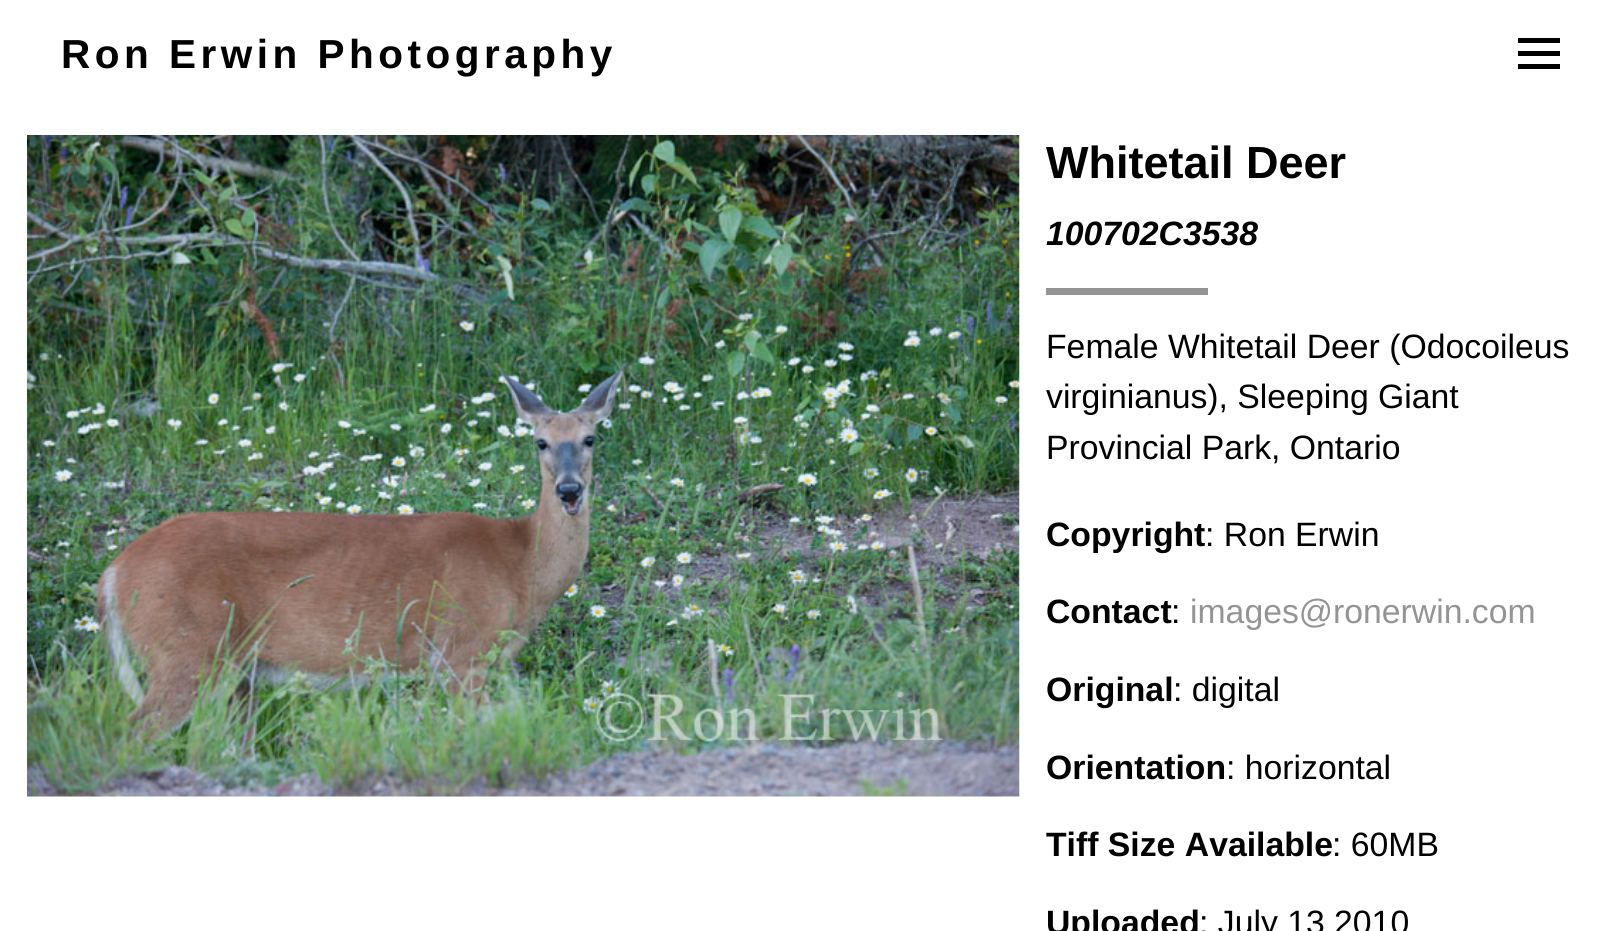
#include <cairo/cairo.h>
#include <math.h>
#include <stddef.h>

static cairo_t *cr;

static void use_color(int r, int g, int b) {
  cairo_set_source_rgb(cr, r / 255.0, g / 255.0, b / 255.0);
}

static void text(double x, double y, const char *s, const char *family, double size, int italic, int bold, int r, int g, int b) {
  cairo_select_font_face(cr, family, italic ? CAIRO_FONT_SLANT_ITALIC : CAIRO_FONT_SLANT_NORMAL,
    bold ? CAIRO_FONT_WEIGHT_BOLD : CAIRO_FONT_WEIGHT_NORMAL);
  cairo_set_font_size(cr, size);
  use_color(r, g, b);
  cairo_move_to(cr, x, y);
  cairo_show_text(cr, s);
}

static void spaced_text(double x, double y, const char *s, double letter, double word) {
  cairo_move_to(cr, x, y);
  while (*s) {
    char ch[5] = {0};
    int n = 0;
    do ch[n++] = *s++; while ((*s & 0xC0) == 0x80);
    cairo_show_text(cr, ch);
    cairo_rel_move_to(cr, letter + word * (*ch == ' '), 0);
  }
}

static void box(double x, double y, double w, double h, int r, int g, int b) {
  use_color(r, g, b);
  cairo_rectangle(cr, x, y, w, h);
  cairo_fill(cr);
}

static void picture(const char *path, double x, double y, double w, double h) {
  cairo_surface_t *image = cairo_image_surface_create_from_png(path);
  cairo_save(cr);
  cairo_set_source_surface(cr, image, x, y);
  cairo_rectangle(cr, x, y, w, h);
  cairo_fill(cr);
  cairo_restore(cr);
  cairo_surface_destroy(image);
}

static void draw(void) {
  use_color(255, 255, 255);
  cairo_paint(cr);
  use_color(0, 0, 0);
  cairo_new_path(cr);
  cairo_move_to(cr, 1518, 38);
  cairo_line_to(cr, 1560, 38);
  cairo_line_to(cr, 1560, 43);
  cairo_line_to(cr, 1518, 43);
  cairo_close_path(cr);
  cairo_move_to(cr, 1518, 51);
  cairo_line_to(cr, 1560, 51);
  cairo_line_to(cr, 1560, 56);
  cairo_line_to(cr, 1518, 56);
  cairo_close_path(cr);
  cairo_move_to(cr, 1518, 64);
  cairo_line_to(cr, 1560, 64);
  cairo_line_to(cr, 1560, 69);
  cairo_line_to(cr, 1518, 69);
  cairo_close_path(cr);
  cairo_fill(cr);
  picture("img_01.png", 27, 135, 993, 662);
  box(1046, 288, 162, 7, 148, 148, 148);
  cairo_select_font_face(cr, "Liberation Sans", CAIRO_FONT_SLANT_NORMAL, CAIRO_FONT_WEIGHT_BOLD);
  cairo_set_font_size(cr, 40.5);
  use_color(0, 0, 0);
  spaced_text(61, 68, "Ron Erwin Photography", 4.5, 0);
  text(1046, 178, "Whitetail Deer", "Liberation Sans", 45, 0, 1, 0, 0, 0);
  text(1046, 245, "100702C3538", "Liberation Sans", 33.75, 1, 1, 0, 0, 0);
  text(1046, 358, "Female Whitetail Deer (Odocoileus", "Liberation Sans", 33.75, 0, 0, 0, 0, 0);
  text(1046, 408, "virginianus), Sleeping Giant", "Liberation Sans", 33.75, 0, 0, 0, 0, 0);
  text(1046, 459, "Provincial Park, Ontario", "Liberation Sans", 33.75, 0, 0, 0, 0, 0);
  text(1046, 546, "Copyright", "Liberation Sans", 33.75, 0, 1, 0, 0, 0);
  text(1205, 546, ": Ron Erwin", "Liberation Sans", 33.75, 0, 0, 0, 0, 0);
  text(1046, 623, "Contact", "Liberation Sans", 33.75, 0, 1, 0, 0, 0);
  text(1171, 623, ":", "Liberation Sans", 33.75, 0, 0, 0, 0, 0);
  text(1190, 623, "images@ronerwin.com", "Liberation Sans", 33.75, 0, 0, 148, 148, 148);
  text(1046, 701, "Original", "Liberation Sans", 33.75, 0, 1, 0, 0, 0);
  text(1173, 701, ": digital", "Liberation Sans", 33.75, 0, 0, 0, 0, 0);
  text(1046, 779, "Orientation", "Liberation Sans", 33.75, 0, 1, 0, 0, 0);
  text(1226, 779, ": horizontal", "Liberation Sans", 33.75, 0, 0, 0, 0, 0);
  text(1046, 856, "Tiff Size Available", "Liberation Sans", 33.75, 0, 1, 0, 0, 0);
  text(1332, 856, ": 60MB", "Liberation Sans", 33.75, 0, 0, 0, 0, 0);
  text(1046, 934, "Uploaded", "Liberation Sans", 33.75, 0, 1, 0, 0, 0);
  text(1199, 934, ": July 13 2010", "Liberation Sans", 33.75, 0, 0, 0, 0, 0);
}

int main(void) {
  cairo_surface_t *surface = cairo_image_surface_create(CAIRO_FORMAT_RGB24, 1603, 931);
  cr = cairo_create(surface);
  cairo_font_options_t *options = cairo_font_options_create();
  cairo_font_options_set_hint_metrics(options, CAIRO_HINT_METRICS_OFF);
  cairo_font_options_set_hint_style(options, CAIRO_HINT_STYLE_NONE);
  cairo_set_font_options(cr, options);
  cairo_set_miter_limit(cr, 4);
  draw();
  cairo_surface_write_to_png(surface, "out.png");
  cairo_font_options_destroy(options);
  cairo_destroy(cr);
  cairo_surface_destroy(surface);
  return 0;
}
